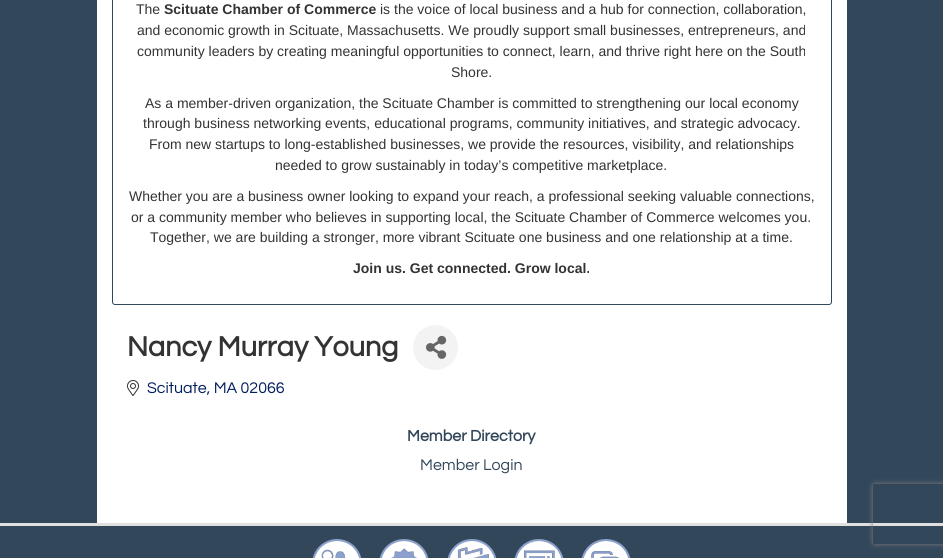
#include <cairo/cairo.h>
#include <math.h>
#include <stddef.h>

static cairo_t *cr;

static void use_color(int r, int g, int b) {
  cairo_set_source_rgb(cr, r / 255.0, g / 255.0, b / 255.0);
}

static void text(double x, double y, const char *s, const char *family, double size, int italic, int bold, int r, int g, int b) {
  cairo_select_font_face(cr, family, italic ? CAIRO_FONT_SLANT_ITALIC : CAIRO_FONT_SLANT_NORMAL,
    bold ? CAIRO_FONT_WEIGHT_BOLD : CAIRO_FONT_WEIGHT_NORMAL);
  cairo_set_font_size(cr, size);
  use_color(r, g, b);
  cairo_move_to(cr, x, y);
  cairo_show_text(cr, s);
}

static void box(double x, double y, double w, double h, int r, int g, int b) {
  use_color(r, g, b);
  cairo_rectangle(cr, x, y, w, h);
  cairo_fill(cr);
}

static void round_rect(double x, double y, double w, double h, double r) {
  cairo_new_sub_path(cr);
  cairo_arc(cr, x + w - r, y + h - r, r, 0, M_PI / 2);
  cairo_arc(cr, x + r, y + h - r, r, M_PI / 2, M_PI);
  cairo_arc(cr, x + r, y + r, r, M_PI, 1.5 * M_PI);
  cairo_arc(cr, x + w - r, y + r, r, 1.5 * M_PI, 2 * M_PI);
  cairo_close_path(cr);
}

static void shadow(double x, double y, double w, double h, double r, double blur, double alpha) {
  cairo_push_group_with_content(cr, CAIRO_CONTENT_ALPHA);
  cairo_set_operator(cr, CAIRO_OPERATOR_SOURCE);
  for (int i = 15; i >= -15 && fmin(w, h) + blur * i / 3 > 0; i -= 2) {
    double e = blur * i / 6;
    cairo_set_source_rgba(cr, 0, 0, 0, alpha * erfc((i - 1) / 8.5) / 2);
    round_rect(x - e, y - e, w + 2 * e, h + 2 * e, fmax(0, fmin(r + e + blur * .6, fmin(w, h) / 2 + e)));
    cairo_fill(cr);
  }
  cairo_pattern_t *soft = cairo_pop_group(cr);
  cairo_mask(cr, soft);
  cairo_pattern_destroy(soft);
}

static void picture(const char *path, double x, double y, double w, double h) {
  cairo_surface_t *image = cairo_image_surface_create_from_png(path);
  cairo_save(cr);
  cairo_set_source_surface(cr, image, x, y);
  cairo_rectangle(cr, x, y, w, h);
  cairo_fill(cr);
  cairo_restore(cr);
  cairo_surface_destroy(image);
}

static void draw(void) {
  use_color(51, 71, 91);
  cairo_paint(cr);
  box(97, 0, 750, 523, 255, 255, 255);
  round_rect(112.5, -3.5, 719, 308, 2.5);
  use_color(51, 71, 91);
  cairo_set_line_width(cr, 1);
  cairo_stroke(cr);
  use_color(243, 243, 243);
  cairo_arc(cr, 435.5, 347.5, 22.5, 0, 2 * M_PI);
  cairo_fill(cr);
  picture("img_01.png", 426, 335, 21, 24);
  picture("img_02.png", 127, 380, 12, 16);
  box(0, 523, 943, 3, 224, 224, 224);
  use_color(139, 160, 203);
  round_rect(313, 540, 48, 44, 24);
  cairo_fill_preserve(cr);
  cairo_set_line_width(cr, 2);
  cairo_stroke(cr);
  picture("img_03.png", 315, 541, 44, 17);
  round_rect(380, 540, 48, 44, 24);
  cairo_fill_preserve(cr);
  cairo_stroke(cr);
  picture("img_04.png", 382, 541, 44, 17);
  round_rect(448, 540, 48, 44, 24);
  cairo_fill_preserve(cr);
  cairo_stroke(cr);
  picture("img_05.png", 450, 541, 44, 17);
  round_rect(515, 540, 48, 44, 24);
  cairo_fill_preserve(cr);
  cairo_stroke(cr);
  picture("img_06.png", 517, 541, 44, 17);
  round_rect(582, 540, 48, 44, 24);
  cairo_fill_preserve(cr);
  cairo_stroke(cr);
  picture("img_07.png", 584, 541, 44, 17);
  cairo_save(cr);
  cairo_set_fill_rule(cr, CAIRO_FILL_RULE_EVEN_ODD);
  cairo_new_path(cr);
  cairo_move_to(cr, 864, 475);
  cairo_line_to(cr, 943, 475);
  cairo_line_to(cr, 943, 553);
  cairo_line_to(cr, 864, 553);
  cairo_close_path(cr);
  cairo_move_to(cr, 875, 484);
  cairo_line_to(cr, 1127, 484);
  cairo_curve_to(cr, 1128, 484, 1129, 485, 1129, 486);
  cairo_line_to(cr, 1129, 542);
  cairo_curve_to(cr, 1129, 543, 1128, 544, 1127, 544);
  cairo_line_to(cr, 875, 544);
  cairo_curve_to(cr, 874, 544, 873, 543, 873, 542);
  cairo_line_to(cr, 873, 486);
  cairo_curve_to(cr, 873, 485, 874, 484, 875, 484);
  cairo_close_path(cr);
  cairo_clip(cr);
  use_color(128, 128, 128);
  shadow(873, 484, 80, 60, 2, 2.5, 1);
  cairo_restore(cr);
  text(136, 14, "The", "Liberation Sans", 14, 0, 0, 51, 51, 51);
  text(164, 14, "Scituate Chamber of Commerce", "Liberation Sans", 14, 0, 1, 51, 51, 51);
  text(380, 14, "is the voice of local business and a hub for connection, collaboration,", "Liberation Sans", 14, 0, 0, 51, 51, 51);
  text(137, 35, "and economic growth in Scituate, Massachusetts. We proudly support small businesses, entrepreneurs, and", "Liberation Sans", 14, 0, 0, 51, 51, 51);
  text(137, 56, "community leaders by creating meaningful opportunities to connect, learn, and thrive right here on the South", "Liberation Sans", 14, 0, 0, 51, 51, 51);
  text(451, 77, "Shore.", "Liberation Sans", 14, 0, 0, 51, 51, 51);
  text(145, 108, "As a member-driven organization, the Scituate Chamber is committed to strengthening our local economy", "Liberation Sans", 14, 0, 0, 51, 51, 51);
  text(143, 128, "through business networking events, educational programs, community initiatives, and strategic advocacy.", "Liberation Sans", 14, 0, 0, 51, 51, 51);
  text(149, 149, "From new startups to long-established businesses, we provide the resources, visibility, and relationships", "Liberation Sans", 14, 0, 0, 51, 51, 51);
  text(275, 170, "needed to grow sustainably in today’s competitive marketplace.", "Liberation Sans", 14, 0, 0, 51, 51, 51);
  text(129, 201, "Whether you are a business owner looking to expand your reach, a professional seeking valuable connections,", "Liberation Sans", 14, 0, 0, 51, 51, 51);
  text(131, 222, "or a community member who believes in supporting local, the Scituate Chamber of Commerce welcomes you.", "Liberation Sans", 14, 0, 0, 51, 51, 51);
  text(150, 242, "Together, we are building a stronger, more vibrant Scituate one business and one relationship at a time.", "Liberation Sans", 14, 0, 0, 51, 51, 51);
  text(353, 273, "Join us. Get connected. Grow local.", "Liberation Sans", 14, 0, 1, 51, 51, 51);
  text(127, 356, "Nancy Murray Young", "Questrial", 28.75, 0, 1, 51, 51, 51);
  text(147, 393, "Scituate, MA 02066", "Questrial", 16, 0, 0, 1, 31, 93);
  text(407, 441, "Member Directory", "Questrial", 16, 0, 1, 51, 71, 91);
  text(420, 470, "Member Login", "Questrial", 16, 0, 0, 51, 71, 91);
}

int main(void) {
  cairo_surface_t *surface = cairo_image_surface_create(CAIRO_FORMAT_RGB24, 943, 558);
  cr = cairo_create(surface);
  cairo_font_options_t *options = cairo_font_options_create();
  cairo_font_options_set_hint_metrics(options, CAIRO_HINT_METRICS_OFF);
  cairo_font_options_set_hint_style(options, CAIRO_HINT_STYLE_NONE);
  cairo_set_font_options(cr, options);
  cairo_set_miter_limit(cr, 4);
  draw();
  cairo_surface_write_to_png(surface, "out.png");
  cairo_font_options_destroy(options);
  cairo_destroy(cr);
  cairo_surface_destroy(surface);
  return 0;
}
